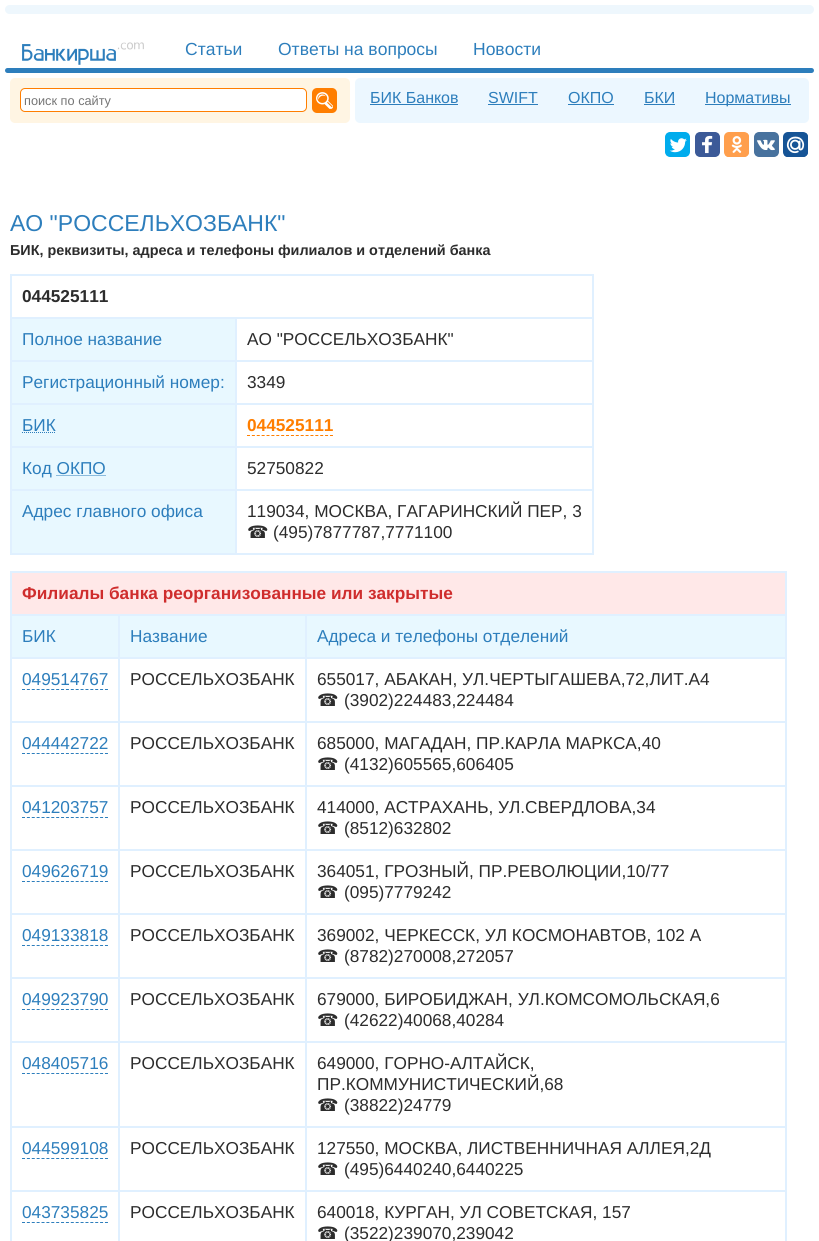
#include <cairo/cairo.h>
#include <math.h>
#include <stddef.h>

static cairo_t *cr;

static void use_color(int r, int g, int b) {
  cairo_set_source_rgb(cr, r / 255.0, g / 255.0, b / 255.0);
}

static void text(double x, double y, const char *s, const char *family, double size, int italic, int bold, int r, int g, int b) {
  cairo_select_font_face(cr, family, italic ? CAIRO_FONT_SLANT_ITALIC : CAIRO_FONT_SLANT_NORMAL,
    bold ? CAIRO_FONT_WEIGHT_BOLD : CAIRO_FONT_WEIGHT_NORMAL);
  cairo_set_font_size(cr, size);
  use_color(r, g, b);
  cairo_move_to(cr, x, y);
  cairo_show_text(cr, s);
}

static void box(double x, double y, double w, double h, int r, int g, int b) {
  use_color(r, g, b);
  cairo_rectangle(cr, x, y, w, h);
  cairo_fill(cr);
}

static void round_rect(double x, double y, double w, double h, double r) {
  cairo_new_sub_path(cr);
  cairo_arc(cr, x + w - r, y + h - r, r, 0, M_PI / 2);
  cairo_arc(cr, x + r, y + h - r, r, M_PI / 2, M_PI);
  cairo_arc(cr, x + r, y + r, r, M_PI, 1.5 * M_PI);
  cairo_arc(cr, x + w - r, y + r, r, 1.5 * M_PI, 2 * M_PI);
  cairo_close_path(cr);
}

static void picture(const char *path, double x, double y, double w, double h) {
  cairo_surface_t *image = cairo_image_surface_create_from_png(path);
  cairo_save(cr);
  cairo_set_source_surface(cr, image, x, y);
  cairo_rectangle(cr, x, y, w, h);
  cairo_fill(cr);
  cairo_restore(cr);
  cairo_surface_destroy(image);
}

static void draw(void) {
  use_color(255, 255, 255);
  cairo_paint(cr);
  use_color(238, 247, 253);
  round_rect(5, 5, 809, 9, 4.5);
  cairo_fill(cr);
  picture("img_01.png", 22, 42, 122, 23);
  use_color(45, 126, 188);
  round_rect(5, 68, 809, 5, 2.5);
  cairo_fill(cr);
  use_color(255, 245, 227);
  round_rect(10, 78, 340, 45, 5);
  cairo_fill(cr);
  use_color(255, 255, 255);
  round_rect(20.5, 88.5, 286, 23, 4.5);
  cairo_fill_preserve(cr);
  use_color(255, 126, 0);
  cairo_set_line_width(cr, 1);
  cairo_stroke(cr);
  round_rect(312, 88, 25, 25, 5);
  cairo_fill(cr);
  picture("img_02.png", 316, 92, 17, 17);
  use_color(236, 247, 255);
  round_rect(355, 78, 454, 45, 5);
  cairo_fill(cr);
  box(370, 104, 88, 1, 45, 126, 188);
  box(488, 104, 50, 1, 45, 126, 188);
  box(568, 104, 46, 1, 45, 126, 188);
  box(644, 104, 31, 1, 45, 126, 188);
  box(705, 104, 86, 1, 45, 126, 188);
  picture("img_03.png", 665, 132, 25, 25);
  picture("img_04.png", 695, 132, 25, 25);
  use_color(255, 159, 77);
  round_rect(724, 132, 25, 25, 5);
  cairo_fill(cr);
  picture("img_05.png", 725, 133, 24, 24);
  picture("img_06.png", 754, 132, 25, 25);
  use_color(22, 84, 150);
  round_rect(783, 132, 25, 25, 5);
  cairo_fill(cr);
  picture("img_07.png", 784, 133, 24, 24);
  box(10, 274, 584, 281, 224, 240, 255);
  box(12, 276, 580, 41, 255, 255, 255);
  box(12, 319, 223, 41, 232, 248, 255);
  box(237, 319, 355, 41, 255, 255, 255);
  box(12, 362, 223, 41, 232, 248, 255);
  box(237, 362, 355, 41, 255, 255, 255);
  box(12, 405, 223, 41, 232, 248, 255);
  cairo_new_path(cr);
  cairo_move_to(cr, 22, 432.5);
  cairo_line_to(cr, 56, 432.5);
  use_color(45, 126, 188);
  cairo_set_dash(cr, (double[]){1, 1}, 2, 0);
  cairo_stroke(cr);
  box(237, 405, 355, 41, 255, 255, 255);
  cairo_new_path(cr);
  cairo_move_to(cr, 247, 435.5);
  cairo_line_to(cr, 333, 435.5);
  use_color(255, 126, 0);
  cairo_set_dash(cr, (double[]){3, 1.88}, 2, 0);
  cairo_stroke(cr);
  box(12, 448, 223, 41, 232, 248, 255);
  cairo_new_path(cr);
  cairo_move_to(cr, 56.5, 475.5);
  cairo_line_to(cr, 106, 475.5);
  use_color(45, 126, 188);
  cairo_set_dash(cr, (double[]){1, 1}, 2, 0);
  cairo_stroke(cr);
  box(237, 448, 355, 41, 255, 255, 255);
  box(12, 491, 223, 62, 232, 248, 255);
  box(237, 491, 355, 62, 255, 255, 255);
  box(10, 571, 777, 670, 224, 240, 255);
  box(12, 573, 773, 41, 255, 232, 232);
  box(12, 616, 106, 41, 232, 248, 255);
  box(120, 616, 185, 41, 232, 248, 255);
  box(307, 616, 478, 41, 232, 248, 255);
  box(12, 659, 106, 62, 255, 255, 255);
  cairo_new_path(cr);
  cairo_move_to(cr, 22, 689.5);
  cairo_line_to(cr, 108, 689.5);
  use_color(45, 126, 188);
  cairo_set_dash(cr, (double[]){3, 1.88}, 2, 0);
  cairo_stroke(cr);
  box(120, 659, 185, 62, 255, 255, 255);
  box(307, 659, 478, 62, 255, 255, 255);
  box(12, 723, 106, 62, 255, 255, 255);
  cairo_new_path(cr);
  cairo_move_to(cr, 22, 753.5);
  cairo_line_to(cr, 108, 753.5);
  use_color(45, 126, 188);
  cairo_stroke(cr);
  box(120, 723, 185, 62, 255, 255, 255);
  box(307, 723, 478, 62, 255, 255, 255);
  box(12, 787, 106, 62, 255, 255, 255);
  cairo_new_path(cr);
  cairo_move_to(cr, 22, 817.5);
  cairo_line_to(cr, 108, 817.5);
  use_color(45, 126, 188);
  cairo_stroke(cr);
  box(120, 787, 185, 62, 255, 255, 255);
  box(307, 787, 478, 62, 255, 255, 255);
  box(12, 851, 106, 62, 255, 255, 255);
  cairo_new_path(cr);
  cairo_move_to(cr, 22, 881.5);
  cairo_line_to(cr, 108, 881.5);
  use_color(45, 126, 188);
  cairo_stroke(cr);
  box(120, 851, 185, 62, 255, 255, 255);
  box(307, 851, 478, 62, 255, 255, 255);
  box(12, 915, 106, 62, 255, 255, 255);
  cairo_new_path(cr);
  cairo_move_to(cr, 22, 945.5);
  cairo_line_to(cr, 108, 945.5);
  use_color(45, 126, 188);
  cairo_stroke(cr);
  box(120, 915, 185, 62, 255, 255, 255);
  box(307, 915, 478, 62, 255, 255, 255);
  box(12, 979, 106, 62, 255, 255, 255);
  cairo_new_path(cr);
  cairo_move_to(cr, 22, 1009.5);
  cairo_line_to(cr, 108, 1009.5);
  use_color(45, 126, 188);
  cairo_stroke(cr);
  box(120, 979, 185, 62, 255, 255, 255);
  box(307, 979, 478, 62, 255, 255, 255);
  box(12, 1043, 106, 83, 255, 255, 255);
  cairo_new_path(cr);
  cairo_move_to(cr, 22, 1073.5);
  cairo_line_to(cr, 108, 1073.5);
  use_color(45, 126, 188);
  cairo_stroke(cr);
  box(120, 1043, 185, 83, 255, 255, 255);
  box(307, 1043, 478, 83, 255, 255, 255);
  box(12, 1128, 106, 62, 255, 255, 255);
  cairo_new_path(cr);
  cairo_move_to(cr, 22, 1158.5);
  cairo_line_to(cr, 108, 1158.5);
  use_color(45, 126, 188);
  cairo_stroke(cr);
  box(120, 1128, 185, 62, 255, 255, 255);
  box(307, 1128, 478, 62, 255, 255, 255);
  box(12, 1192, 106, 49, 255, 255, 255);
  cairo_new_path(cr);
  cairo_move_to(cr, 22, 1222.5);
  cairo_line_to(cr, 108, 1222.5);
  use_color(45, 126, 188);
  cairo_stroke(cr);
  box(120, 1192, 185, 49, 255, 255, 255);
  box(307, 1192, 478, 49, 255, 255, 255);
  text(185, 55, "Статьи", "Liberation Sans", 17.5, 0, 0, 45, 126, 188);
  text(278, 55, "Ответы на вопросы", "Liberation Sans", 17.5, 0, 0, 45, 126, 188);
  text(473, 55, "Новости", "Liberation Sans", 17.5, 0, 0, 45, 126, 188);
  text(24, 105, "поиск по сайту", "Liberation Sans", 12.75, 0, 0, 117, 117, 117);
  text(370, 103, "БИК Банков", "Liberation Sans", 16, 0, 0, 45, 126, 188);
  text(488, 103, "SWIFT", "Liberation Sans", 16, 0, 0, 45, 126, 188);
  text(568, 103, "ОКПО", "Liberation Sans", 16, 0, 0, 45, 126, 188);
  text(644, 103, "БКИ", "Liberation Sans", 16, 0, 0, 45, 126, 188);
  text(705, 103, "Нормативы", "Liberation Sans", 16, 0, 0, 45, 126, 188);
  text(10, 231, "АО \"РОССЕЛЬХОЗБАНК\"", "Liberation Sans", 23, 0, 0, 45, 126, 188);
  text(10, 255, "БИК, реквизиты, адреса и телефоны филиалов и отделений банка", "Liberation Sans", 14.4, 0, 1, 44, 44, 44);
  text(22, 302, "044525111", "Liberation Sans", 17.25, 0, 1, 44, 44, 44);
  text(22, 345, "Полное название", "Liberation Sans", 17.25, 0, 0, 45, 126, 188);
  text(247, 345, "АО \"РОССЕЛЬХОЗБАНК\"", "Liberation Sans", 17.25, 0, 0, 44, 44, 44);
  text(22, 388, "Регистрационный номер:", "Liberation Sans", 17.25, 0, 0, 45, 126, 188);
  text(247, 388, "3349", "Liberation Sans", 17.25, 0, 0, 44, 44, 44);
  text(22, 431, "БИК", "Liberation Sans", 17.25, 0, 0, 45, 126, 188);
  text(247, 431, "044525111", "Liberation Sans", 17.25, 0, 1, 255, 126, 0);
  text(22, 474, "Код ОКПО", "Liberation Sans", 17.25, 0, 0, 45, 126, 188);
  text(247, 474, "52750822", "Liberation Sans", 17.25, 0, 0, 44, 44, 44);
  text(22, 517, "Адрес главного офиса", "Liberation Sans", 17.25, 0, 0, 45, 126, 188);
  text(247, 517, "119034, МОСКВА, ГАГАРИНСКИЙ ПЕР, 3", "Liberation Sans", 17.25, 0, 0, 44, 44, 44);
  text(247, 538, "☎", "DejaVu Sans", 17.25, 0, 0, 44, 44, 44);
  text(273, 538, "(495)7877787,7771100", "Liberation Sans", 17.25, 0, 0, 44, 44, 44);
  text(22, 599, "Филиалы банка реорганизованные или закрытые", "Liberation Sans", 17.25, 0, 1, 207, 45, 45);
  text(22, 642, "БИК", "Liberation Sans", 17.25, 0, 0, 45, 126, 188);
  text(130, 642, "Название", "Liberation Sans", 17.25, 0, 0, 45, 126, 188);
  text(317, 642, "Адреса и телефоны отделений", "Liberation Sans", 17.25, 0, 0, 45, 126, 188);
  text(22, 685, "049514767", "Liberation Sans", 17.25, 0, 0, 45, 126, 188);
  text(130, 685, "РОССЕЛЬХОЗБАНК", "Liberation Sans", 17.25, 0, 0, 44, 44, 44);
  text(317, 685, "655017, АБАКАН, УЛ.ЧЕРТЫГАШЕВА,72,ЛИТ.А4", "Liberation Sans", 17.25, 0, 0, 44, 44, 44);
  text(317, 706, "☎", "DejaVu Sans", 17.25, 0, 0, 44, 44, 44);
  text(344, 706, "(3902)224483,224484", "Liberation Sans", 17.25, 0, 0, 44, 44, 44);
  text(22, 749, "044442722", "Liberation Sans", 17.25, 0, 0, 45, 126, 188);
  text(130, 749, "РОССЕЛЬХОЗБАНК", "Liberation Sans", 17.25, 0, 0, 44, 44, 44);
  text(317, 749, "685000, МАГАДАН, ПР.КАРЛА МАРКСА,40", "Liberation Sans", 17.25, 0, 0, 44, 44, 44);
  text(317, 770, "☎", "DejaVu Sans", 17.25, 0, 0, 44, 44, 44);
  text(344, 770, "(4132)605565,606405", "Liberation Sans", 17.25, 0, 0, 44, 44, 44);
  text(22, 813, "041203757", "Liberation Sans", 17.25, 0, 0, 45, 126, 188);
  text(130, 813, "РОССЕЛЬХОЗБАНК", "Liberation Sans", 17.25, 0, 0, 44, 44, 44);
  text(317, 813, "414000, АСТРАХАНЬ, УЛ.СВЕРДЛОВА,34", "Liberation Sans", 17.25, 0, 0, 44, 44, 44);
  text(317, 834, "☎", "DejaVu Sans", 17.25, 0, 0, 44, 44, 44);
  text(344, 834, "(8512)632802", "Liberation Sans", 17.25, 0, 0, 44, 44, 44);
  text(22, 877, "049626719", "Liberation Sans", 17.25, 0, 0, 45, 126, 188);
  text(130, 877, "РОССЕЛЬХОЗБАНК", "Liberation Sans", 17.25, 0, 0, 44, 44, 44);
  text(317, 877, "364051, ГРОЗНЫЙ, ПР.РЕВОЛЮЦИИ,10/77", "Liberation Sans", 17.25, 0, 0, 44, 44, 44);
  text(317, 898, "☎", "DejaVu Sans", 17.25, 0, 0, 44, 44, 44);
  text(344, 898, "(095)7779242", "Liberation Sans", 17.25, 0, 0, 44, 44, 44);
  text(22, 941, "049133818", "Liberation Sans", 17.25, 0, 0, 45, 126, 188);
  text(130, 941, "РОССЕЛЬХОЗБАНК", "Liberation Sans", 17.25, 0, 0, 44, 44, 44);
  text(317, 941, "369002, ЧЕРКЕССК, УЛ КОСМОНАВТОВ, 102 А", "Liberation Sans", 17.25, 0, 0, 44, 44, 44);
  text(317, 962, "☎", "DejaVu Sans", 17.25, 0, 0, 44, 44, 44);
  text(344, 962, "(8782)270008,272057", "Liberation Sans", 17.25, 0, 0, 44, 44, 44);
  text(22, 1005, "049923790", "Liberation Sans", 17.25, 0, 0, 45, 126, 188);
  text(130, 1005, "РОССЕЛЬХОЗБАНК", "Liberation Sans", 17.25, 0, 0, 44, 44, 44);
  text(317, 1005, "679000, БИРОБИДЖАН, УЛ.КОМСОМОЛЬСКАЯ,6", "Liberation Sans", 17.25, 0, 0, 44, 44, 44);
  text(317, 1026, "☎", "DejaVu Sans", 17.25, 0, 0, 44, 44, 44);
  text(344, 1026, "(42622)40068,40284", "Liberation Sans", 17.25, 0, 0, 44, 44, 44);
  text(22, 1069, "048405716", "Liberation Sans", 17.25, 0, 0, 45, 126, 188);
  text(130, 1069, "РОССЕЛЬХОЗБАНК", "Liberation Sans", 17.25, 0, 0, 44, 44, 44);
  text(317, 1069, "649000, ГОРНО-АЛТАЙСК,", "Liberation Sans", 17.25, 0, 0, 44, 44, 44);
  text(317, 1090, "ПР.КОММУНИСТИЧЕСКИЙ,68", "Liberation Sans", 17.25, 0, 0, 44, 44, 44);
  text(317, 1111, "☎", "DejaVu Sans", 17.25, 0, 0, 44, 44, 44);
  text(344, 1111, "(38822)24779", "Liberation Sans", 17.25, 0, 0, 44, 44, 44);
  text(22, 1154, "044599108", "Liberation Sans", 17.25, 0, 0, 45, 126, 188);
  text(130, 1154, "РОССЕЛЬХОЗБАНК", "Liberation Sans", 17.25, 0, 0, 44, 44, 44);
  text(317, 1154, "127550, МОСКВА, ЛИСТВЕННИЧНАЯ АЛЛЕЯ,2Д", "Liberation Sans", 17.25, 0, 0, 44, 44, 44);
  text(317, 1175, "☎", "DejaVu Sans", 17.25, 0, 0, 44, 44, 44);
  text(344, 1175, "(495)6440240,6440225", "Liberation Sans", 17.25, 0, 0, 44, 44, 44);
  text(22, 1218, "043735825", "Liberation Sans", 17.25, 0, 0, 45, 126, 188);
  text(130, 1218, "РОССЕЛЬХОЗБАНК", "Liberation Sans", 17.25, 0, 0, 44, 44, 44);
  text(317, 1218, "640018, КУРГАН, УЛ СОВЕТСКАЯ, 157", "Liberation Sans", 17.25, 0, 0, 44, 44, 44);
  text(317, 1239, "☎", "DejaVu Sans", 17.25, 0, 0, 44, 44, 44);
  text(344, 1239, "(3522)239070,239042", "Liberation Sans", 17.25, 0, 0, 44, 44, 44);
}

int main(void) {
  cairo_surface_t *surface = cairo_image_surface_create(CAIRO_FORMAT_RGB24, 819, 1241);
  cr = cairo_create(surface);
  cairo_font_options_t *options = cairo_font_options_create();
  cairo_font_options_set_hint_metrics(options, CAIRO_HINT_METRICS_OFF);
  cairo_font_options_set_hint_style(options, CAIRO_HINT_STYLE_NONE);
  cairo_set_font_options(cr, options);
  cairo_set_miter_limit(cr, 4);
  draw();
  cairo_surface_write_to_png(surface, "out.png");
  cairo_font_options_destroy(options);
  cairo_destroy(cr);
  cairo_surface_destroy(surface);
  return 0;
}
